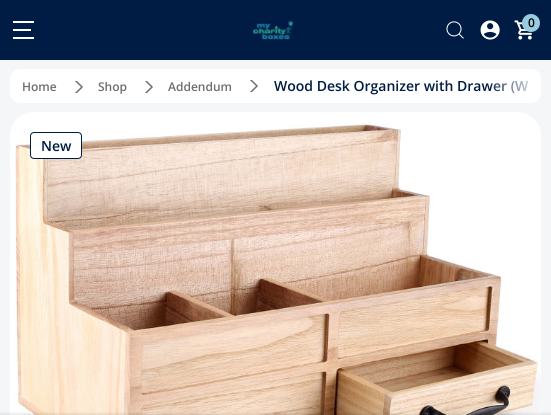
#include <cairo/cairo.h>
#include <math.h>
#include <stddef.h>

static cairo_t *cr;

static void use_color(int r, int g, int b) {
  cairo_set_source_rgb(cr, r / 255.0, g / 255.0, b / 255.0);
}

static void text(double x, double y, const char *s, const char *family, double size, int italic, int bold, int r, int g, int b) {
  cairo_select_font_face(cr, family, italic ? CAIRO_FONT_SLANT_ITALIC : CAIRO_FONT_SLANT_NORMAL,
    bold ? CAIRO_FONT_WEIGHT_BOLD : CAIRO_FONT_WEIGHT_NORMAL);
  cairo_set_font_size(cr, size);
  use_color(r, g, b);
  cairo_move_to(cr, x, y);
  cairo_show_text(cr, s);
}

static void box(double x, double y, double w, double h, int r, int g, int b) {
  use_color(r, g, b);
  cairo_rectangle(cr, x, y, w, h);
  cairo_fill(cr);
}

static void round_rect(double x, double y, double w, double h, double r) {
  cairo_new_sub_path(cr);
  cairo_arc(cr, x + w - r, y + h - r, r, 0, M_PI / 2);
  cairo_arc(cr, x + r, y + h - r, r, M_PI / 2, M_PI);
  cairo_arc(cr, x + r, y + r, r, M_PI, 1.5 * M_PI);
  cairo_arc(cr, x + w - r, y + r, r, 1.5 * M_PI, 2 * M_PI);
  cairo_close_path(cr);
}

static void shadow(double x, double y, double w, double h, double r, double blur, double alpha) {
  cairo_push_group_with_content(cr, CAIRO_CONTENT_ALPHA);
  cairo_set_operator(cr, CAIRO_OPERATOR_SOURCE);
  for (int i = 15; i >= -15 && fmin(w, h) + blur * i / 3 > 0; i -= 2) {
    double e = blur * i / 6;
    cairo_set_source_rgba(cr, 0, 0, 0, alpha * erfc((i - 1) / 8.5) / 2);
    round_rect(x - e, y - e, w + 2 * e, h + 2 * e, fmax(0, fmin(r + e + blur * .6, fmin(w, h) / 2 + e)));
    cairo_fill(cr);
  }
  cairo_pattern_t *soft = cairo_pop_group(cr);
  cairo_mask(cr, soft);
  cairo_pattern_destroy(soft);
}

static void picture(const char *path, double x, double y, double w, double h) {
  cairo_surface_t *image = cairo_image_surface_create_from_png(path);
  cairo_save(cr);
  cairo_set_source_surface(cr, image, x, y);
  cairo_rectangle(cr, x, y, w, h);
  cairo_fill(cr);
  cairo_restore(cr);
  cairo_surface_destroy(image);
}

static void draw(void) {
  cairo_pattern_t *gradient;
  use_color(244, 246, 247);
  cairo_paint(cr);
  box(0, 0, 551, 60, 0, 27, 68);
  box(13, 29, 18, 2, 255, 255, 255);
  box(13, 21, 21, 2, 255, 255, 255);
  box(13, 37, 21, 2, 255, 255, 255);
  picture("img_01.png", 253, 20, 41, 20);
  picture("img_02.png", 446, 21, 18, 18);
  picture("img_03.png", 480, 20, 20, 20);
  picture("img_04.png", 514, 20, 18, 20);
  use_color(152, 205, 225);
  cairo_arc(cr, 531, 23, 9, 0, 2 * M_PI);
  cairo_fill(cr);
  use_color(255, 255, 255);
  round_rect(10, 69, 531, 34, 10);
  cairo_fill(cr);
  gradient = cairo_pattern_create_linear(10, 86, 22, 86);
  cairo_pattern_add_color_stop_rgba(gradient, 0, 1, 1, 1, 1);
  cairo_pattern_add_color_stop_rgba(gradient, 1, 1, 1, 1, 0.1);
  cairo_set_source(cr, gradient);
  cairo_pattern_destroy(gradient);
  cairo_rectangle(cr, 10, 76, 1, 20);
  cairo_fill(cr);
  picture("img_05.png", 75, 81, 8, 12);
  picture("img_05.png", 145, 81, 8, 12);
  picture("img_05.png", 250, 80, 8, 12);
  use_color(255, 255, 255);
  round_rect(10, 112, 531, 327, 24);
  cairo_fill(cr);
  picture("img_06.png", 15, 123, 526, 292);
  round_rect(30.5, 132.5, 51, 26, 3.5);
  cairo_fill_preserve(cr);
  use_color(0, 27, 68);
  cairo_set_line_width(cr, 1);
  cairo_stroke(cr);
  use_color(0, 0, 0);
  shadow(0, 415, 551, 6, 0, 2, 0.2);
  text(528, 27, "0", "Open Sans SemiBold", 12, 0, 0, 0, 0, 0);
  text(22, 91, "Home", "Open Sans SemiBold", 12, 0, 0, 110, 110, 110);
  text(98, 91, "Shop", "Open Sans SemiBold", 12, 0, 0, 110, 110, 110);
  text(168, 91, "Addendum", "Open Sans SemiBold", 12, 0, 0, 110, 110, 110);
  text(274, 91, "Wood Desk Organizer with Drawer (W", "Open Sans SemiBold", 14, 0, 0, 0, 27, 68);
  gradient = cairo_pattern_create_linear(541, 86, 491, 86);
  cairo_pattern_add_color_stop_rgba(gradient, 0, 1, 1, 1, 1);
  cairo_pattern_add_color_stop_rgba(gradient, 1, 1, 1, 1, 0.1);
  cairo_set_source(cr, gradient);
  cairo_pattern_destroy(gradient);
  cairo_rectangle(cr, 491, 76, 50, 20);
  cairo_fill(cr);
  text(41, 151, "New", "Open Sans SemiBold", 14, 0, 0, 0, 27, 68);
}

int main(void) {
  cairo_surface_t *surface = cairo_image_surface_create(CAIRO_FORMAT_RGB24, 551, 415);
  cr = cairo_create(surface);
  cairo_font_options_t *options = cairo_font_options_create();
  cairo_font_options_set_hint_metrics(options, CAIRO_HINT_METRICS_OFF);
  cairo_font_options_set_hint_style(options, CAIRO_HINT_STYLE_NONE);
  cairo_set_font_options(cr, options);
  cairo_set_miter_limit(cr, 4);
  draw();
  cairo_surface_write_to_png(surface, "out.png");
  cairo_font_options_destroy(options);
  cairo_destroy(cr);
  cairo_surface_destroy(surface);
  return 0;
}
